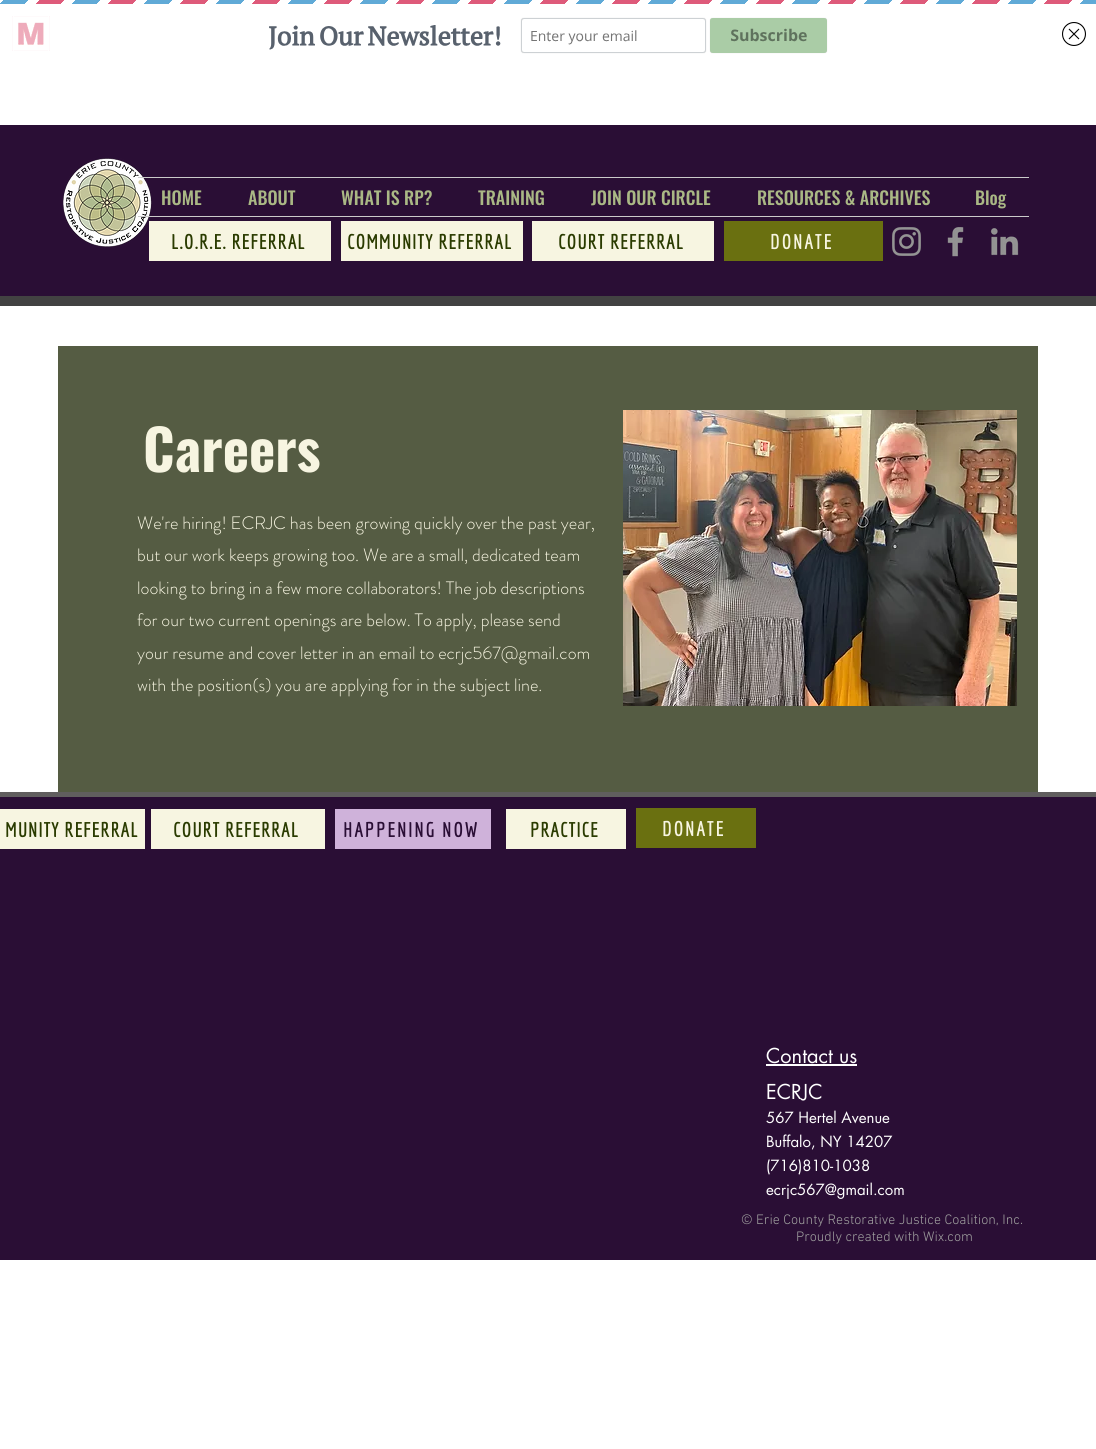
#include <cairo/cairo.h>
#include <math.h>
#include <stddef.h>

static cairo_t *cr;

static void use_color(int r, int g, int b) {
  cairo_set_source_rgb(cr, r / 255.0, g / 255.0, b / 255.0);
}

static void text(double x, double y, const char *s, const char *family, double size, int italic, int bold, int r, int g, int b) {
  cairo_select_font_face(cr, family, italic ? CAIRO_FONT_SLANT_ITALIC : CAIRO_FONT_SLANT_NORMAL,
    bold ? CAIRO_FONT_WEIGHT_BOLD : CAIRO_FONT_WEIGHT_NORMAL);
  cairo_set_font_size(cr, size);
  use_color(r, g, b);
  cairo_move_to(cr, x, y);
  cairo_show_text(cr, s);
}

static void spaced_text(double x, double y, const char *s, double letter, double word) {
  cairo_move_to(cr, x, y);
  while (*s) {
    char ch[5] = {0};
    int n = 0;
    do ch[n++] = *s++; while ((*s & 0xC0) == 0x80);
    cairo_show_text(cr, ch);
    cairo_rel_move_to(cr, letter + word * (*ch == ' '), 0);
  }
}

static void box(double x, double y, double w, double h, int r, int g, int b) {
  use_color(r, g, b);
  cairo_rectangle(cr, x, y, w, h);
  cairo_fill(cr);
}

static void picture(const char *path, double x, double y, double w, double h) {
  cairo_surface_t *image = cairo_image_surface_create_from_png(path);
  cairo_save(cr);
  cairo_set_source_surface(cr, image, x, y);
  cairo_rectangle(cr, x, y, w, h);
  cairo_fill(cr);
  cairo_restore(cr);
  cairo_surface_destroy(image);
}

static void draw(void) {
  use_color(255, 255, 255);
  cairo_paint(cr);
  picture("img_01.png", 0, 0, 1096, 54);
  box(0, 125, 1096, 171, 42, 14, 53);
  picture("img_02.png", 63, 158, 89, 89);
  box(138, 177, 891, 1, 202, 202, 202);
  box(138, 216, 891, 1, 202, 202, 202);
  box(149, 221, 182, 40, 247, 245, 225);
  box(341, 221, 182, 40, 247, 245, 225);
  box(532, 221, 182, 40, 247, 245, 225);
  box(724, 221, 159, 40, 106, 112, 16);
  picture("img_03.png", 892, 227, 29, 29);
  picture("img_04.png", 947, 227, 17, 30);
  picture("img_05.png", 990, 228, 29, 28);
  box(0, 296, 1096, 10, 66, 66, 66);
  box(58, 346, 980, 446, 85, 92, 67);
  picture("img_06.png", 623, 410, 394, 296);
  box(0, 797, 1096, 463, 42, 14, 53);
  box(0, 792, 1096, 5, 96, 94, 94);
  box(0, 809, 145, 40, 247, 245, 225);
  box(151, 809, 174, 40, 247, 245, 225);
  box(335, 809, 156, 40, 207, 178, 218);
  box(506, 809, 120, 40, 247, 245, 225);
  box(636, 808, 120, 40, 106, 112, 16);
  box(766, 1064, 91, 2, 255, 255, 255);
  text(161, 205, "HOME", "Oswald Medium", 18, 0, 0, 170, 184, 133);
  text(248, 205, "ABOUT", "Oswald Medium", 18, 0, 0, 170, 184, 133);
  text(341, 205, "WHAT IS RP?", "Oswald Medium", 18, 0, 0, 170, 184, 133);
  text(478, 205, "TRAINING", "Oswald Medium", 18, 0, 0, 170, 184, 133);
  text(591, 205, "JOIN OUR CIRCLE", "Oswald Medium", 18, 0, 0, 170, 184, 133);
  text(757, 205, "RESOURCES & ARCHIVES", "Oswald Medium", 18, 0, 0, 170, 184, 133);
  text(975, 205, "Blog", "Oswald Medium", 18, 0, 0, 170, 184, 133);
  cairo_select_font_face(cr, "Economica", CAIRO_FONT_SLANT_NORMAL, CAIRO_FONT_WEIGHT_BOLD);
  cairo_set_font_size(cr, 20);
  use_color(42, 59, 0);
  spaced_text(171, 249, "L.O.R.E. REFERRAL", 1, 0);
  spaced_text(347, 249, "COMMUNITY REFERRAL", 1, 0);
  spaced_text(558, 249, "COURT REFERRAL", 1, 0);
  use_color(247, 245, 225);
  spaced_text(770, 249, "DONATE", 2, 0);
  text(143, 472, "Careers", "Oswald", 56, 0, 1, 247, 245, 225);
  text(137, 529, "We're hiring! ECRJC has been growing quickly over the past year,", "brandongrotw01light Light", 18, 0, 0, 247, 245, 225);
  text(137, 561, "but our work keeps growing too. We are a small, dedicated team", "brandongrotw01light Light", 18, 0, 0, 247, 245, 225);
  text(137, 594, "looking to bring in a few more collaborators! The job descriptions", "brandongrotw01light Light", 18, 0, 0, 247, 245, 225);
  text(137, 626, "for our two current openings are below. To apply, please send", "brandongrotw01light Light", 18, 0, 0, 247, 245, 225);
  text(137, 659, "your resume and cover letter in an email to ecrjc567@gmail.com", "brandongrotw01light Light", 18, 0, 0, 247, 245, 225);
  text(137, 691, "with the position(s) you are applying for in the subject line.", "brandongrotw01light Light", 18, 0, 0, 247, 245, 225);
  cairo_select_font_face(cr, "Economica", CAIRO_FONT_SLANT_NORMAL, CAIRO_FONT_WEIGHT_BOLD);
  cairo_set_font_size(cr, 20);
  use_color(42, 59, 0);
  spaced_text(5, 837, "MUNITY REFERRAL", 1, 0);
  spaced_text(173, 837, "COURT REFERRAL", 1, 0);
  use_color(42, 14, 53);
  spaced_text(343, 837, "HAPPENING NOW", 2, 0);
  use_color(42, 59, 0);
  spaced_text(530, 837, "PRACTICE", 1, 0);
  use_color(247, 245, 225);
  spaced_text(662, 836, "DONATE", 2, 0);
  text(766, 1063, "Contact us", "futura", 20, 0, 0, 255, 255, 255);
  text(766, 1099, "ECRJC", "futura", 20, 0, 0, 255, 255, 255);
  text(766, 1123, "567 Hertel Avenue", "futura", 15, 0, 0, 255, 255, 255);
  text(766, 1147, "Buffalo, NY 14207", "futura", 15, 0, 0, 255, 255, 255);
  text(766, 1171, "(716)810-1038", "futura", 15, 0, 0, 255, 255, 255);
  text(766, 1195, "ecrjc567@gmail.com", "futura", 15, 0, 0, 255, 255, 255);
  text(741, 1224, "© Erie County Restorative Justice Coalition, Inc.", "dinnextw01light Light", 14, 0, 0, 160, 160, 159);
  text(796, 1241, "Proudly created with Wix.com", "dinnextw01light Light", 14, 0, 0, 160, 160, 159);
}

int main(void) {
  cairo_surface_t *surface = cairo_image_surface_create(CAIRO_FORMAT_RGB24, 1096, 1449);
  cr = cairo_create(surface);
  cairo_font_options_t *options = cairo_font_options_create();
  cairo_font_options_set_hint_metrics(options, CAIRO_HINT_METRICS_OFF);
  cairo_font_options_set_hint_style(options, CAIRO_HINT_STYLE_NONE);
  cairo_set_font_options(cr, options);
  cairo_set_miter_limit(cr, 4);
  draw();
  cairo_surface_write_to_png(surface, "out.png");
  cairo_font_options_destroy(options);
  cairo_destroy(cr);
  cairo_surface_destroy(surface);
  return 0;
}
